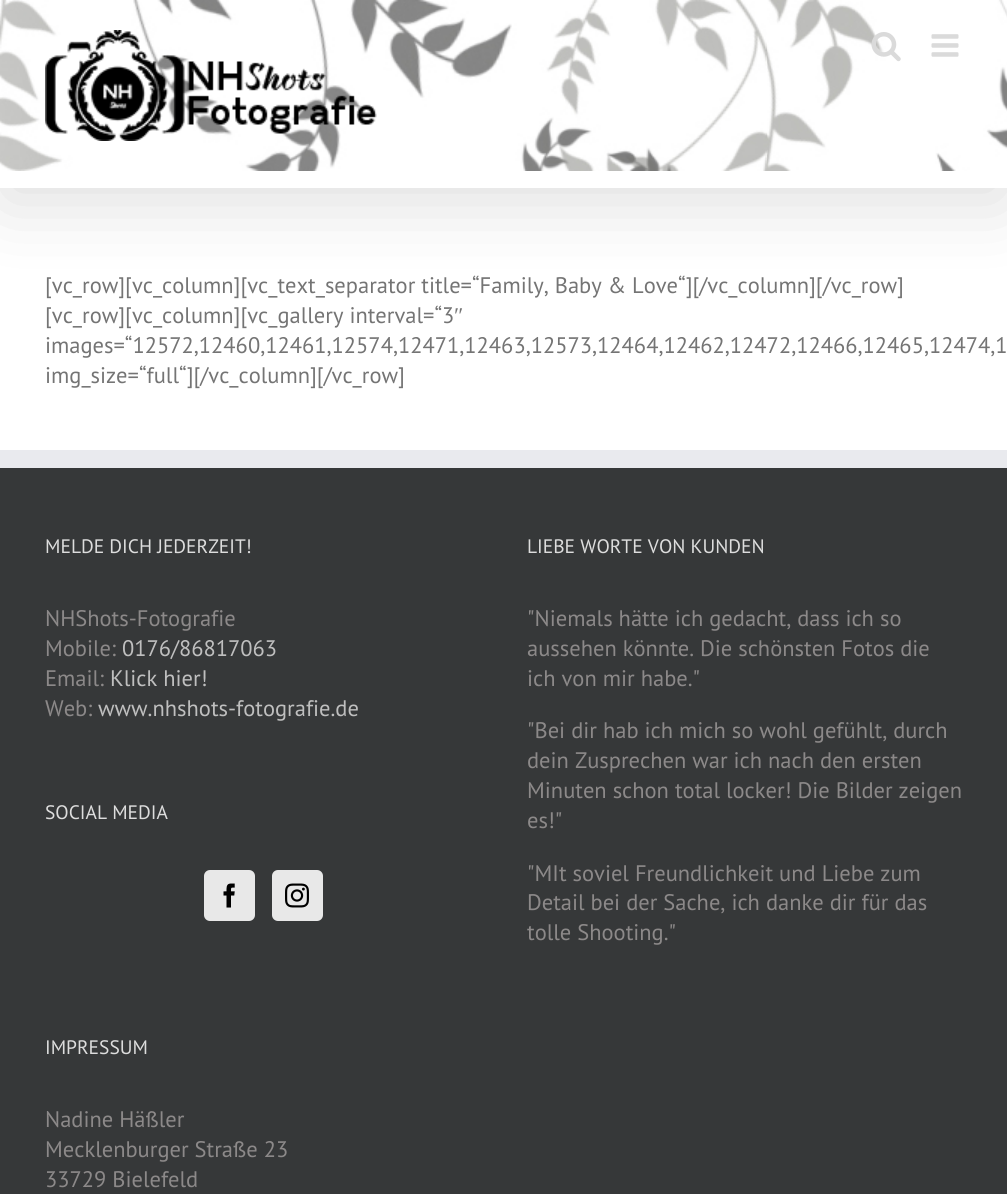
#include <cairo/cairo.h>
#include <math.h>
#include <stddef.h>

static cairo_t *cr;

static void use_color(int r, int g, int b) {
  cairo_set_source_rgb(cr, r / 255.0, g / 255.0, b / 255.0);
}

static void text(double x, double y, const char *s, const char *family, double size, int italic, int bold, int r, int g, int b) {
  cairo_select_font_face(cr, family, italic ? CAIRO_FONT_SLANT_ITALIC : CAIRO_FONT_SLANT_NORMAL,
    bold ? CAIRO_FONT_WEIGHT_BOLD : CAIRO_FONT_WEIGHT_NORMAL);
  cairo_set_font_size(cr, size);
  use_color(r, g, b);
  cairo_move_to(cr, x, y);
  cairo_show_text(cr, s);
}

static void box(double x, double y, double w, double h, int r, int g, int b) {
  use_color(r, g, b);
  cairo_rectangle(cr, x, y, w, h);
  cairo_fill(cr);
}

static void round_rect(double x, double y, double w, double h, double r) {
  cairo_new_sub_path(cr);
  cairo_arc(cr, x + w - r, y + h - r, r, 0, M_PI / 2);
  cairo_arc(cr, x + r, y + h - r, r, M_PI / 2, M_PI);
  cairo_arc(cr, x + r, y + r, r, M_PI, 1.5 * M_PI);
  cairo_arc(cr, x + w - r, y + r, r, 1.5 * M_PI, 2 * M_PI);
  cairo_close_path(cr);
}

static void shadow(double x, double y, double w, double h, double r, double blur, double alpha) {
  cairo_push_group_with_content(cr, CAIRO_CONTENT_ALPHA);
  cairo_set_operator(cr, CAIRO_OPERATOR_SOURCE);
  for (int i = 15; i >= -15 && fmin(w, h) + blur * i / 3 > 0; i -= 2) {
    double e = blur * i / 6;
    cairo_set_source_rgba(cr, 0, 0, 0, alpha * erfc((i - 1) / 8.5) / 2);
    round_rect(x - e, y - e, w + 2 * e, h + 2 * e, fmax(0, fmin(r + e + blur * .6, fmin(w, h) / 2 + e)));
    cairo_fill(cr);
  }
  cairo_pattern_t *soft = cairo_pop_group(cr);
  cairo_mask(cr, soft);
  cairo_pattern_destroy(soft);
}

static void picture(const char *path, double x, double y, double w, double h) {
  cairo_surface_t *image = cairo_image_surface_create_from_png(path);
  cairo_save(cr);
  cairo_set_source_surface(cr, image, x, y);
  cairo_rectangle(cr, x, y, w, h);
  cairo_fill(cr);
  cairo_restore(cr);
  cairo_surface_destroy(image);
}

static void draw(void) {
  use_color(255, 255, 255);
  cairo_paint(cr);
  cairo_save(cr);
  cairo_set_fill_rule(cr, CAIRO_FILL_RULE_EVEN_ODD);
  cairo_new_path(cr);
  cairo_move_to(cr, 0, 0);
  cairo_line_to(cr, 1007, 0);
  cairo_line_to(cr, 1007, 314);
  cairo_line_to(cr, 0, 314);
  cairo_close_path(cr);
  cairo_move_to(cr, 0, -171);
  cairo_line_to(cr, 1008, -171);
  cairo_line_to(cr, 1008, 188);
  cairo_line_to(cr, 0, 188);
  cairo_close_path(cr);
  cairo_clip(cr);
  use_color(0, 0, 0);
  shadow(3, -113, 1002, 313, 0, 37.5, 0.14);
  cairo_restore(cr);
  picture("img_01.png", 0, 0, 1007, 171);
  picture("img_02.png", 45, 30, 332, 111);
  picture("img_03.png", 871, 32, 30, 30);
  picture("img_04.png", 931, 34, 28, 23);
  box(0, 468, 1007, 726, 54, 56, 57);
  box(0, 450, 1007, 18, 233, 234, 238);
  use_color(232, 232, 232);
  round_rect(205, 871, 49, 49, 5);
  cairo_fill_preserve(cr);
  cairo_stroke(cr);
  picture("img_05.png", 223, 883, 12, 25);
  round_rect(273, 871, 49, 49, 5);
  cairo_fill_preserve(cr);
  cairo_stroke(cr);
  picture("img_06.png", 285, 883, 24, 25);
  text(45, 293, "[vc_row][vc_column][vc_text_separator title=“Family, Baby & Love“][/vc_column][/vc_row]", "PT Sans", 22.5, 0, 0, 116, 116, 116);
  text(45, 323, "[vc_row][vc_column][vc_gallery interval=“3", "PT Sans", 22.5, 0, 0, 116, 116, 116);
  text(454, 323, "″", "Liberation Serif", 22.5, 0, 0, 116, 116, 116);
  text(45, 353, "images=“12572,12460,12461,12574,12471,12463,12573,12464,12462,12472,12466,12465,12474,1", "PT Sans", 22.5, 0, 0, 116, 116, 116);
  text(45, 383, "img_size=“full“][/vc_column][/vc_row]", "PT Sans", 22.5, 0, 0, 116, 116, 116);
  text(45, 553, "MELDE DICH JEDERZEIT!", "PT Sans", 19.5, 0, 0, 221, 221, 221);
  text(45, 626, "NHShots-Fotografie", "PT Sans", 22.5, 0, 0, 140, 137, 137);
  text(45, 656, "Mobile:", "PT Sans", 22.5, 0, 0, 140, 137, 137);
  text(122, 656, "0176/86817063", "PT Sans", 22.5, 0, 0, 191, 191, 191);
  text(45, 686, "Email:", "PT Sans", 22.5, 0, 0, 140, 137, 137);
  text(110, 686, "Klick hier!", "PT Sans", 22.5, 0, 0, 191, 191, 191);
  text(45, 716, "Web:", "PT Sans", 22.5, 0, 0, 140, 137, 137);
  text(98, 716, "www.nhshots-fotografie.de", "PT Sans", 22.5, 0, 0, 191, 191, 191);
  text(45, 819, "SOCIAL MEDIA", "PT Sans", 19.5, 0, 0, 221, 221, 221);
  text(45, 1054, "IMPRESSUM", "PT Sans", 19.5, 0, 0, 221, 221, 221);
  text(45, 1127, "Nadine Häßler", "PT Sans", 22.5, 0, 0, 140, 137, 137);
  text(45, 1157, "Mecklenburger Straße 23", "PT Sans", 22.5, 0, 0, 140, 137, 137);
  text(45, 1187, "33729 Bielefeld", "PT Sans", 22.5, 0, 0, 140, 137, 137);
  text(527, 553, "LIEBE WORTE VON KUNDEN", "PT Sans", 19.5, 0, 0, 221, 221, 221);
  text(527, 626, "\"Niemals hätte ich gedacht, dass ich so", "PT Sans", 22.5, 0, 0, 140, 137, 137);
  text(527, 656, "aussehen könnte. Die schönsten Fotos die", "PT Sans", 22.5, 0, 0, 140, 137, 137);
  text(527, 686, "ich von mir habe.\"", "PT Sans", 22.5, 0, 0, 140, 137, 137);
  text(527, 738, "\"Bei dir hab ich mich so wohl gefühlt, durch", "PT Sans", 22.5, 0, 0, 140, 137, 137);
  text(527, 768, "dein Zusprechen war ich nach den ersten", "PT Sans", 22.5, 0, 0, 140, 137, 137);
  text(527, 798, "Minuten schon total locker! Die Bilder zeigen", "PT Sans", 22.5, 0, 0, 140, 137, 137);
  text(527, 828, "es!\"", "PT Sans", 22.5, 0, 0, 140, 137, 137);
  text(527, 881, "\"MIt soviel Freundlichkeit und Liebe zum", "PT Sans", 22.5, 0, 0, 140, 137, 137);
  text(527, 910, "Detail bei der Sache, ich danke dir für das", "PT Sans", 22.5, 0, 0, 140, 137, 137);
  text(527, 940, "tolle Shooting.\"", "PT Sans", 22.5, 0, 0, 140, 137, 137);
}

int main(void) {
  cairo_surface_t *surface = cairo_image_surface_create(CAIRO_FORMAT_RGB24, 1007, 1194);
  cr = cairo_create(surface);
  cairo_font_options_t *options = cairo_font_options_create();
  cairo_font_options_set_hint_metrics(options, CAIRO_HINT_METRICS_OFF);
  cairo_font_options_set_hint_style(options, CAIRO_HINT_STYLE_NONE);
  cairo_set_font_options(cr, options);
  cairo_set_miter_limit(cr, 4);
  draw();
  cairo_surface_write_to_png(surface, "out.png");
  cairo_font_options_destroy(options);
  cairo_destroy(cr);
  cairo_surface_destroy(surface);
  return 0;
}
